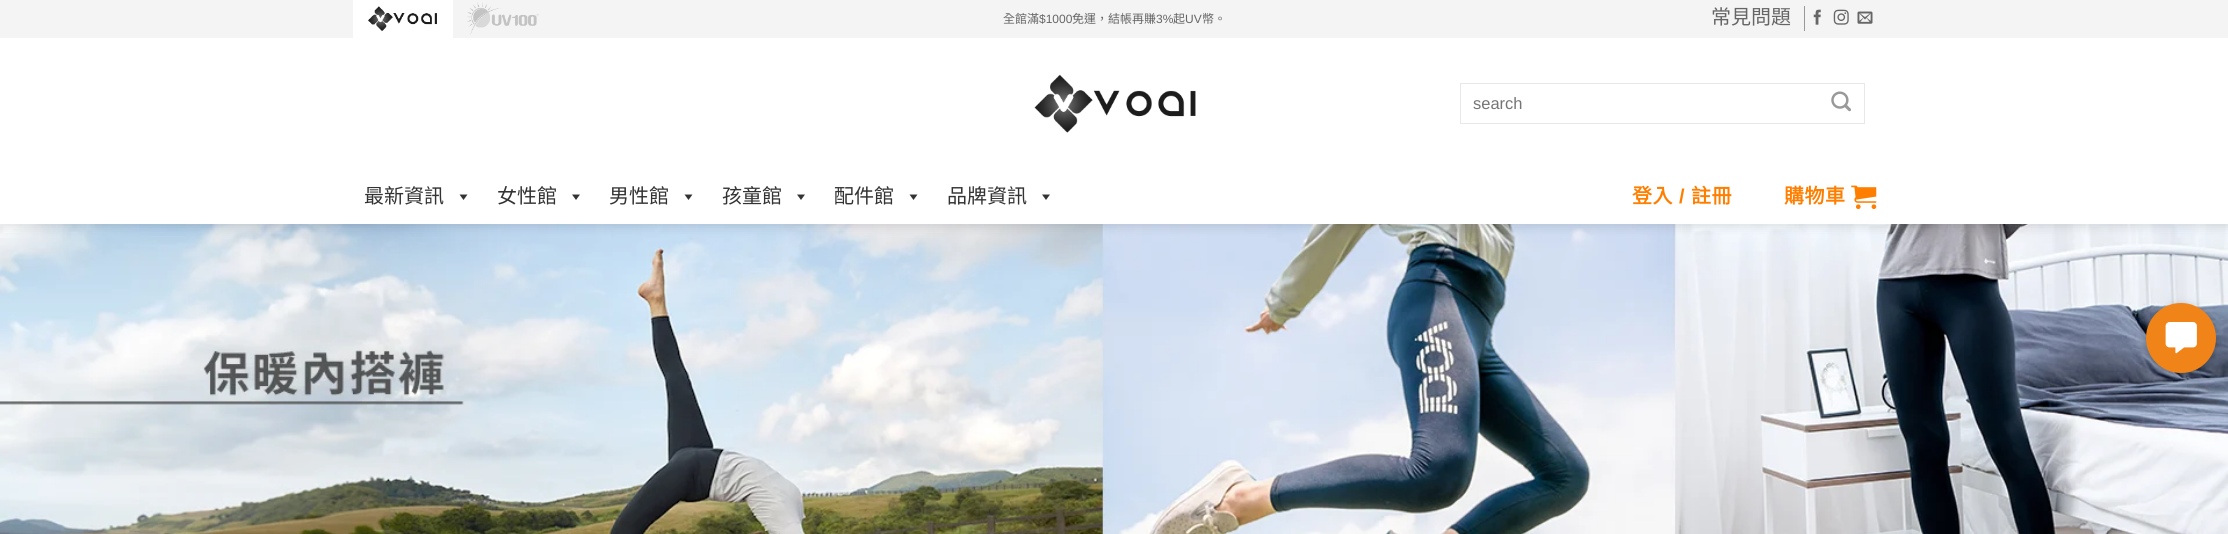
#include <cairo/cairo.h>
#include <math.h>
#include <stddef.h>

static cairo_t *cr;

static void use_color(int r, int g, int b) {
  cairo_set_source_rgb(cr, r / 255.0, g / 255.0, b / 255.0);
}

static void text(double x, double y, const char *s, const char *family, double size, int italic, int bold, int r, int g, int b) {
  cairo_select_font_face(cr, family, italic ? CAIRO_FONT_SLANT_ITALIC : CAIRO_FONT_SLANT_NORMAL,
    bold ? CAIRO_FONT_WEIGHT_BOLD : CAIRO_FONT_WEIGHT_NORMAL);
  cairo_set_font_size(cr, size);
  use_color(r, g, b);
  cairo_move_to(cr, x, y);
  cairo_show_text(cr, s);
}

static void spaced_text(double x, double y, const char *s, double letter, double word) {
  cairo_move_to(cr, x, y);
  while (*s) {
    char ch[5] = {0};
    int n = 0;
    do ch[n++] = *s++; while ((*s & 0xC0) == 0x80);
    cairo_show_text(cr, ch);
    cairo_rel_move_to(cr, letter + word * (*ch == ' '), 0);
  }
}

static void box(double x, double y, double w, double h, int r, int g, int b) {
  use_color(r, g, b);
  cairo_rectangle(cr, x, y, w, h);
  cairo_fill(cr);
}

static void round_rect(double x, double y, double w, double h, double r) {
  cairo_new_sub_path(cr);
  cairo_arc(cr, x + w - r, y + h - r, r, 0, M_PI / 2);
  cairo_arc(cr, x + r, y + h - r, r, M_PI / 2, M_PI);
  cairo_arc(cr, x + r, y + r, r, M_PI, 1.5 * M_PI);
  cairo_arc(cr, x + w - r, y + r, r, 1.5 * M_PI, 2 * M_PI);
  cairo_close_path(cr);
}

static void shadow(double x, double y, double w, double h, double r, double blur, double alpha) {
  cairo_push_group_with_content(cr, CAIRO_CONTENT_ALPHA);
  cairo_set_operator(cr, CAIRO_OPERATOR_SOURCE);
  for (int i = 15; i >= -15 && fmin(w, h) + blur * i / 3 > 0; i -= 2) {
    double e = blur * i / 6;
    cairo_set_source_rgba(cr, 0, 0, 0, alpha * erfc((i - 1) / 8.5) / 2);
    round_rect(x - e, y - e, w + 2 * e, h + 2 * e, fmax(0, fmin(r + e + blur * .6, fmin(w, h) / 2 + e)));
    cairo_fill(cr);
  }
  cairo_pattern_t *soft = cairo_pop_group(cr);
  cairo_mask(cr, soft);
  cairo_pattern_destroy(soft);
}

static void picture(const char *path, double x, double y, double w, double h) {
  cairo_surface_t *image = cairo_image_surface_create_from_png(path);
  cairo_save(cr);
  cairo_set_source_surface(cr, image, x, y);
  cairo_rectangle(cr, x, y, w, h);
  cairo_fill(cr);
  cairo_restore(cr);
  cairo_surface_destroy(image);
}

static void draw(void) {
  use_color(255, 255, 255);
  cairo_paint(cr);
  picture("img_09.png", 0, 224, 2228, 310);
  use_color(0, 0, 0);
  shadow(1, 1, 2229, 224, 0, 6, 0.15);
  box(0, 38, 2228, 186, 255, 255, 255);
  box(0, 0, 2228, 38, 244, 244, 244);
  box(353, 0, 100, 38, 255, 255, 255);
  picture("img_01.png", 368, 6, 69, 26);
  picture("img_02.png", 467, 2, 72, 33);
  box(1804, 6, 1, 25, 153, 153, 153);
  picture("img_03.png", 1813, 9, 8, 16);
  picture("img_04.png", 1833, 9, 16, 16);
  picture("img_05.png", 1857, 11, 16, 13);
  picture("img_06.png", 1034, 74, 162, 59);
  cairo_rectangle(cr, 1460.5, 83.5, 404, 40);
  use_color(232, 232, 232);
  cairo_set_line_width(cr, 1);
  cairo_stroke(cr);
  picture("img_07.png", 1831, 91, 20, 21);
  use_color(51, 51, 51);
  cairo_new_path(cr);
  cairo_move_to(cr, 467.5, 194.5);
  cairo_line_to(cr, 463.5, 200);
  cairo_line_to(cr, 459.5, 194.5);
  cairo_close_path(cr);
  cairo_fill(cr);
  cairo_new_path(cr);
  cairo_move_to(cr, 580, 194.5);
  cairo_line_to(cr, 576, 200);
  cairo_line_to(cr, 572, 194.5);
  cairo_close_path(cr);
  cairo_fill(cr);
  cairo_new_path(cr);
  cairo_move_to(cr, 692.5, 194.5);
  cairo_line_to(cr, 688.5, 200);
  cairo_line_to(cr, 684.5, 194.5);
  cairo_close_path(cr);
  cairo_fill(cr);
  cairo_new_path(cr);
  cairo_move_to(cr, 805, 194.5);
  cairo_line_to(cr, 801, 200);
  cairo_line_to(cr, 797, 194.5);
  cairo_close_path(cr);
  cairo_fill(cr);
  cairo_new_path(cr);
  cairo_move_to(cr, 917.5, 194.5);
  cairo_line_to(cr, 913.5, 200);
  cairo_line_to(cr, 909.5, 194.5);
  cairo_close_path(cr);
  cairo_fill(cr);
  cairo_new_path(cr);
  cairo_move_to(cr, 1050, 194.5);
  cairo_line_to(cr, 1046, 200);
  cairo_line_to(cr, 1042, 194.5);
  cairo_close_path(cr);
  cairo_fill(cr);
  picture("img_08.png", 1851, 185, 26, 24);
  use_color(0, 0, 0);
  shadow(2146, 305, 70, 70, 35, 6, 0.12);
  shadow(2146, 305, 70, 70, 35, 3, 0.16);
  use_color(240, 132, 25);
  cairo_arc(cr, 2181, 338, 35, 0, 2 * M_PI);
  cairo_fill(cr);
  picture("img_10.png", 2165, 322, 32, 32);
  text(1003, 23, "全館滿", "Noto Sans CJK TC", 12, 0, 0, 102, 102, 102);
  text(1039, 23, "$1000", "Liberation Sans", 12, 0, 0, 102, 102, 102);
  text(1072, 23, "免運，結帳再賺", "Noto Sans CJK TC", 12, 0, 0, 102, 102, 102);
  text(1156, 23, "3%", "Liberation Sans", 12, 0, 0, 102, 102, 102);
  text(1173, 23, "起", "Noto Sans CJK TC", 12, 0, 0, 102, 102, 102);
  text(1185, 23, "UV", "Liberation Sans", 12, 0, 0, 102, 102, 102);
  text(1202, 23, "幣。", "Noto Sans CJK TC", 12, 0, 0, 102, 102, 102);
  text(1711, 24, "常見問題", "Noto Sans CJK TC", 20, 0, 0, 102, 102, 102);
  text(1473, 109, "search", "Liberation Sans", 16.5, 0, 0, 117, 117, 117);
  text(364, 203, "最新資訊", "Noto Sans CJK TC", 20, 0, 0, 51, 51, 51);
  text(497, 203, "女性館", "Noto Sans CJK TC", 20, 0, 0, 51, 51, 51);
  text(609, 203, "男性館", "Noto Sans CJK TC", 20, 0, 0, 51, 51, 51);
  text(722, 203, "孩童館", "Noto Sans CJK TC", 20, 0, 0, 51, 51, 51);
  text(834, 203, "配件館", "Noto Sans CJK TC", 20, 0, 0, 51, 51, 51);
  text(947, 203, "品牌資訊", "Noto Sans CJK TC", 20, 0, 0, 51, 51, 51);
  cairo_select_font_face(cr, "Noto Sans CJK TC", CAIRO_FONT_SLANT_NORMAL, CAIRO_FONT_WEIGHT_BOLD);
  use_color(255, 126, 0);
  spaced_text(1632, 203, "登入", 0.5, 0);
  cairo_select_font_face(cr, "Liberation Sans", CAIRO_FONT_SLANT_NORMAL, CAIRO_FONT_WEIGHT_BOLD);
  spaced_text(1679, 203, "/", 0.5, 0);
  cairo_select_font_face(cr, "Noto Sans CJK TC", CAIRO_FONT_SLANT_NORMAL, CAIRO_FONT_WEIGHT_BOLD);
  spaced_text(1691, 203, "註冊", 0.5, 0);
  spaced_text(1784, 203, "購物車", 0.5, 0);
}

int main(void) {
  cairo_surface_t *surface = cairo_image_surface_create(CAIRO_FORMAT_RGB24, 2228, 534);
  cr = cairo_create(surface);
  cairo_font_options_t *options = cairo_font_options_create();
  cairo_font_options_set_hint_metrics(options, CAIRO_HINT_METRICS_OFF);
  cairo_font_options_set_hint_style(options, CAIRO_HINT_STYLE_NONE);
  cairo_set_font_options(cr, options);
  cairo_set_miter_limit(cr, 4);
  draw();
  cairo_surface_write_to_png(surface, "out.png");
  cairo_font_options_destroy(options);
  cairo_destroy(cr);
  cairo_surface_destroy(surface);
  return 0;
}
